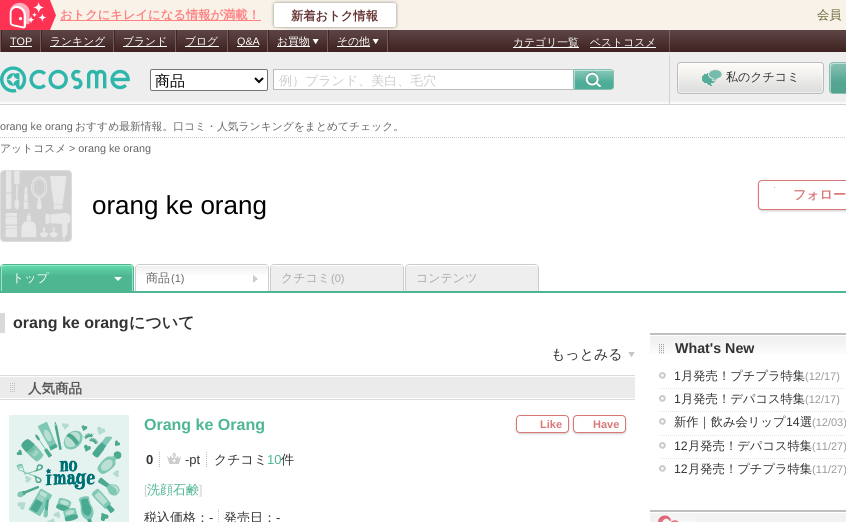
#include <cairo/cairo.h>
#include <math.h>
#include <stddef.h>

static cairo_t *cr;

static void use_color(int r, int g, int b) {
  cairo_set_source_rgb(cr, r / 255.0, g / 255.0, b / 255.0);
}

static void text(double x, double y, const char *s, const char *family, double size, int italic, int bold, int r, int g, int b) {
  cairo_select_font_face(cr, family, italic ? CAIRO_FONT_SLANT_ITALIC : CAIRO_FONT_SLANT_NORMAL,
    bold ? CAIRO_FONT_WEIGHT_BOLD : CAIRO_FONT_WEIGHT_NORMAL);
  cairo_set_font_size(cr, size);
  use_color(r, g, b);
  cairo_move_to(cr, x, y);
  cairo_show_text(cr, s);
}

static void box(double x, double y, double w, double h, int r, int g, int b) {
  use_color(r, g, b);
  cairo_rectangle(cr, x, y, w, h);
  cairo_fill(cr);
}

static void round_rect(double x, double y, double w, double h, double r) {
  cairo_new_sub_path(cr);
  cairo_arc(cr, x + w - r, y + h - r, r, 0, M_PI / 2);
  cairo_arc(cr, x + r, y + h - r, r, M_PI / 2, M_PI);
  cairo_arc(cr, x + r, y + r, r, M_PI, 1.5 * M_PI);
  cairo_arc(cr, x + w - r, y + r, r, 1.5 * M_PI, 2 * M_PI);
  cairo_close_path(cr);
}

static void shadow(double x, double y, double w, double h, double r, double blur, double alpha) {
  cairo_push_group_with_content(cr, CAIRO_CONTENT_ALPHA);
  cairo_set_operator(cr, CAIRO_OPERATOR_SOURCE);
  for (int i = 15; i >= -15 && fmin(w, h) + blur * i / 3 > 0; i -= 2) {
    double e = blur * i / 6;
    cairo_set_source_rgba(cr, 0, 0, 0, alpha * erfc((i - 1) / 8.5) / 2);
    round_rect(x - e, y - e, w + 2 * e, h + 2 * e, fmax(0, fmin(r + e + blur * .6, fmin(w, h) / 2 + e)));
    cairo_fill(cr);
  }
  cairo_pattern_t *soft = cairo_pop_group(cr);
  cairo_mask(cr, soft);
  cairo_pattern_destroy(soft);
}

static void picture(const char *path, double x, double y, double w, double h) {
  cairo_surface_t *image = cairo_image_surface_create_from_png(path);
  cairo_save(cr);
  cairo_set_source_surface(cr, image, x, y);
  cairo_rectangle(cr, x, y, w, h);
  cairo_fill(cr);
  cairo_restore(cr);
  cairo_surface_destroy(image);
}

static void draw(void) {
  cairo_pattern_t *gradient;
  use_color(255, 255, 255);
  cairo_paint(cr);
  box(50, 0, 796, 30, 248, 242, 233);
  picture("img_01.png", 0, 0, 56, 30);
  box(60, 20, 201, 1, 255, 129, 130);
  picture("img_02.png", 271, 0, 128, 30);
  picture("img_03.png", 0, 30, 846, 75);
  picture("img_04.png", 669, 30, 1, 74);
  box(388, 30, 1, 22, 64, 35, 35);
  box(0, 30, 1, 22, 114, 93, 93);
  box(40, 30, 1, 22, 114, 93, 93);
  box(1, 30, 1, 22, 64, 35, 35);
  box(10, 46, 22, 1, 255, 255, 255);
  box(113, 30, 1, 22, 114, 93, 93);
  box(41, 30, 1, 22, 64, 35, 35);
  box(50, 46, 55, 1, 255, 255, 255);
  box(175, 30, 1, 22, 114, 93, 93);
  box(114, 30, 1, 22, 64, 35, 35);
  box(123, 46, 44, 1, 255, 255, 255);
  box(227, 30, 1, 22, 114, 93, 93);
  box(176, 30, 1, 22, 64, 35, 35);
  box(185, 46, 34, 1, 255, 255, 255);
  box(267, 30, 1, 22, 114, 93, 93);
  box(228, 30, 1, 22, 64, 35, 35);
  box(237, 46, 22, 1, 255, 255, 255);
  box(327, 30, 1, 22, 114, 93, 93);
  box(268, 30, 1, 22, 64, 35, 35);
  box(277, 46, 33, 1, 255, 255, 255);
  picture("img_05.png", 312, 39, 7, 5);
  box(387, 30, 1, 22, 114, 93, 93);
  box(328, 30, 1, 22, 64, 35, 35);
  box(337, 46, 33, 1, 255, 255, 255);
  picture("img_05.png", 372, 39, 7, 5);
  box(513, 47, 66, 1, 255, 255, 255);
  box(590, 47, 66, 1, 255, 255, 255);
  picture("img_06.png", 0, 66, 130, 27);
  round_rect(150.5, 69.5, 117, 21, 1.5);
  cairo_fill_preserve(cr);
  use_color(118, 118, 118);
  cairo_set_line_width(cr, 1);
  cairo_stroke(cr);
  cairo_new_path(cr);
  cairo_move_to(cr, 255, 78);
  cairo_line_to(cr, 259, 82);
  cairo_line_to(cr, 263, 78);
  use_color(0, 0, 0);
  cairo_set_line_width(cr, 2);
  cairo_stroke(cr);
  use_color(255, 255, 255);
  cairo_rectangle(cr, 273.5, 69.5, 300, 20);
  cairo_fill_preserve(cr);
  use_color(187, 187, 187);
  cairo_set_line_width(cr, 1);
  cairo_stroke(cr);
  picture("img_07.png", 573, 69, 41, 21);
  picture("img_08.png", 677, 62, 147, 32);
  picture("img_09.png", 702, 69, 21, 17);
  picture("img_10.png", 829, 62, 17, 32);
  cairo_new_path(cr);
  cairo_move_to(cr, 0, 137.5);
  cairo_line_to(cr, 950, 137.5);
  use_color(204, 204, 204);
  cairo_set_dash(cr, (double[]){1, 1}, 2, 0);
  cairo_stroke(cr);
  round_rect(0.5, 170.5, 71, 71, 3.5);
  use_color(221, 221, 221);
  cairo_set_dash(cr, NULL, 0, 0);
  cairo_stroke(cr);
  picture("img_11.png", 1, 171, 70, 70);
  use_color(0, 0, 0);
  shadow(758, 181, 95, 30, 4, 1, 0.2);
  use_color(255, 255, 255);
  round_rect(758.5, 180.5, 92, 29, 3.5);
  cairo_fill_preserve(cr);
  use_color(217, 119, 119);
  cairo_stroke(cr);
  box(774, 187, 1, 1, 232, 173, 173);
  box(0, 291, 846, 2, 78, 182, 145);
  cairo_set_fill_rule(cr, CAIRO_FILL_RULE_EVEN_ODD);
  cairo_new_path(cr);
  cairo_move_to(cr, 4, 264);
  cairo_line_to(cr, 130, 264);
  cairo_curve_to(cr, 132, 264, 134, 266, 134, 268);
  cairo_line_to(cr, 134, 291);
  cairo_line_to(cr, 0, 291);
  cairo_line_to(cr, 0, 268);
  cairo_curve_to(cr, 0, 266, 2, 264, 4, 264);
  cairo_close_path(cr);
  cairo_move_to(cr, 4, 265);
  cairo_line_to(cr, 130, 265);
  cairo_curve_to(cr, 132, 265, 133, 266, 133, 268);
  cairo_line_to(cr, 133, 291);
  cairo_line_to(cr, 1, 291);
  cairo_line_to(cr, 1, 268);
  cairo_curve_to(cr, 1, 266, 2, 265, 4, 265);
  cairo_close_path(cr);
  cairo_fill(cr);
  cairo_save(cr);
  cairo_set_fill_rule(cr, CAIRO_FILL_RULE_WINDING);
  cairo_new_path(cr);
  cairo_move_to(cr, 4, 265);
  cairo_line_to(cr, 130, 265);
  cairo_curve_to(cr, 131.5, 265, 133, 266.5, 133, 268);
  cairo_line_to(cr, 133, 291);
  cairo_line_to(cr, 1, 291);
  cairo_line_to(cr, 1, 268);
  cairo_curve_to(cr, 1, 266.5, 2.5, 265, 4, 265);
  cairo_close_path(cr);
  cairo_clip(cr);
  gradient = cairo_pattern_create_linear(67, 266, 67, 291);
  cairo_pattern_add_color_stop_rgba(gradient, 0, 0.376, 0.847, 0.667, 1);
  cairo_pattern_add_color_stop_rgba(gradient, 0.4, 0.306, 0.714, 0.569, 1);
  cairo_set_source(cr, gradient);
  cairo_pattern_destroy(gradient);
  cairo_rectangle(cr, 1, 266, 132, 25);
  cairo_fill(cr);
  cairo_restore(cr);
  use_color(152, 231, 201);
  cairo_new_path(cr);
  cairo_move_to(cr, 4, 265);
  cairo_line_to(cr, 130, 265);
  cairo_curve_to(cr, 132, 265, 133, 266, 133, 268);
  cairo_line_to(cr, 133, 291);
  cairo_line_to(cr, 1, 291);
  cairo_line_to(cr, 1, 268);
  cairo_curve_to(cr, 1, 266, 2, 265, 4, 265);
  cairo_close_path(cr);
  cairo_move_to(cr, 4, 266);
  cairo_line_to(cr, 130, 266);
  cairo_curve_to(cr, 131, 266, 132, 267, 132, 268);
  cairo_line_to(cr, 132, 291);
  cairo_line_to(cr, 2, 291);
  cairo_line_to(cr, 2, 268);
  cairo_curve_to(cr, 2, 267, 3, 266, 4, 266);
  cairo_close_path(cr);
  cairo_fill(cr);
  use_color(255, 255, 255);
  cairo_set_fill_rule(cr, CAIRO_FILL_RULE_WINDING);
  cairo_new_path(cr);
  cairo_move_to(cr, 114, 277);
  cairo_line_to(cr, 122, 277);
  cairo_line_to(cr, 118, 281);
  cairo_close_path(cr);
  cairo_fill(cr);
  use_color(204, 204, 204);
  cairo_set_fill_rule(cr, CAIRO_FILL_RULE_EVEN_ODD);
  cairo_new_path(cr);
  cairo_move_to(cr, 139, 264);
  cairo_line_to(cr, 265, 264);
  cairo_curve_to(cr, 267, 264, 269, 266, 269, 268);
  cairo_line_to(cr, 269, 291);
  cairo_line_to(cr, 135, 291);
  cairo_line_to(cr, 135, 268);
  cairo_curve_to(cr, 135, 266, 137, 264, 139, 264);
  cairo_close_path(cr);
  cairo_move_to(cr, 139, 265);
  cairo_line_to(cr, 265, 265);
  cairo_curve_to(cr, 267, 265, 268, 266, 268, 268);
  cairo_line_to(cr, 268, 291);
  cairo_line_to(cr, 136, 291);
  cairo_line_to(cr, 136, 268);
  cairo_curve_to(cr, 136, 266, 137, 265, 139, 265);
  cairo_close_path(cr);
  cairo_fill(cr);
  cairo_save(cr);
  cairo_set_fill_rule(cr, CAIRO_FILL_RULE_WINDING);
  cairo_new_path(cr);
  cairo_move_to(cr, 139, 265);
  cairo_line_to(cr, 265, 265);
  cairo_curve_to(cr, 266.5, 265, 268, 266.5, 268, 268);
  cairo_line_to(cr, 268, 291);
  cairo_line_to(cr, 136, 291);
  cairo_line_to(cr, 136, 268);
  cairo_curve_to(cr, 136, 266.5, 137.5, 265, 139, 265);
  cairo_close_path(cr);
  cairo_clip(cr);
  gradient = cairo_pattern_create_linear(202, 241, 202, 266);
  cairo_pattern_add_color_stop_rgba(gradient, 0, 0.937, 0.937, 0.937, 1);
  cairo_pattern_add_color_stop_rgba(gradient, 0.4, 1, 1, 1, 1);
  cairo_set_source(cr, gradient);
  cairo_pattern_destroy(gradient);
  cairo_rectangle(cr, 136, 265, 132, 1);
  cairo_fill(cr);
  gradient = cairo_pattern_create_linear(202, 266, 202, 291);
  cairo_pattern_add_color_stop_rgba(gradient, 0, 0.937, 0.937, 0.937, 1);
  cairo_pattern_add_color_stop_rgba(gradient, 0.4, 1, 1, 1, 1);
  cairo_set_source(cr, gradient);
  cairo_pattern_destroy(gradient);
  cairo_rectangle(cr, 136, 266, 132, 25);
  cairo_fill(cr);
  cairo_restore(cr);
  box(266, 265, 1, 1, 255, 255, 255);
  use_color(204, 204, 204);
  cairo_set_fill_rule(cr, CAIRO_FILL_RULE_WINDING);
  cairo_new_path(cr);
  cairo_move_to(cr, 253, 283);
  cairo_line_to(cr, 253, 275);
  cairo_line_to(cr, 258, 279);
  cairo_close_path(cr);
  cairo_fill(cr);
  cairo_set_fill_rule(cr, CAIRO_FILL_RULE_EVEN_ODD);
  cairo_new_path(cr);
  cairo_move_to(cr, 274, 264);
  cairo_line_to(cr, 400, 264);
  cairo_curve_to(cr, 402, 264, 404, 266, 404, 268);
  cairo_line_to(cr, 404, 291);
  cairo_line_to(cr, 270, 291);
  cairo_line_to(cr, 270, 268);
  cairo_curve_to(cr, 270, 266, 272, 264, 274, 264);
  cairo_close_path(cr);
  cairo_move_to(cr, 274, 265);
  cairo_line_to(cr, 400, 265);
  cairo_curve_to(cr, 402, 265, 403, 266, 403, 268);
  cairo_line_to(cr, 403, 291);
  cairo_line_to(cr, 271, 291);
  cairo_line_to(cr, 271, 268);
  cairo_curve_to(cr, 271, 266, 272, 265, 274, 265);
  cairo_close_path(cr);
  cairo_fill(cr);
  use_color(238, 238, 238);
  cairo_new_path(cr);
  cairo_move_to(cr, 274, 265);
  cairo_line_to(cr, 400, 265);
  cairo_curve_to(cr, 401.5, 265, 403, 266.5, 403, 268);
  cairo_line_to(cr, 403, 291);
  cairo_line_to(cr, 271, 291);
  cairo_line_to(cr, 271, 268);
  cairo_curve_to(cr, 271, 266.5, 272.5, 265, 274, 265);
  cairo_close_path(cr);
  cairo_fill(cr);
  box(273, 265, 129, 1, 255, 255, 255);
  use_color(204, 204, 204);
  cairo_new_path(cr);
  cairo_move_to(cr, 409, 264);
  cairo_line_to(cr, 535, 264);
  cairo_curve_to(cr, 537, 264, 539, 266, 539, 268);
  cairo_line_to(cr, 539, 291);
  cairo_line_to(cr, 405, 291);
  cairo_line_to(cr, 405, 268);
  cairo_curve_to(cr, 405, 266, 407, 264, 409, 264);
  cairo_close_path(cr);
  cairo_move_to(cr, 409, 265);
  cairo_line_to(cr, 535, 265);
  cairo_curve_to(cr, 537, 265, 538, 266, 538, 268);
  cairo_line_to(cr, 538, 291);
  cairo_line_to(cr, 406, 291);
  cairo_line_to(cr, 406, 268);
  cairo_curve_to(cr, 406, 266, 407, 265, 409, 265);
  cairo_close_path(cr);
  cairo_fill(cr);
  use_color(238, 238, 238);
  cairo_new_path(cr);
  cairo_move_to(cr, 409, 265);
  cairo_line_to(cr, 535, 265);
  cairo_curve_to(cr, 536.5, 265, 538, 266.5, 538, 268);
  cairo_line_to(cr, 538, 291);
  cairo_line_to(cr, 406, 291);
  cairo_line_to(cr, 406, 268);
  cairo_curve_to(cr, 406, 266.5, 407.5, 265, 409, 265);
  cairo_close_path(cr);
  cairo_fill(cr);
  box(408, 265, 129, 1, 255, 255, 255);
  box(0, 313, 5, 20, 217, 217, 217);
  picture("img_12.png", 628, 352, 7, 5);
  box(0, 375, 635, 1, 219, 219, 219);
  box(0, 399, 635, 1, 219, 219, 219);
  box(0, 377, 635, 21, 235, 235, 235);
  picture("img_13.png", 10, 383, 5, 9);
  picture("img_14.png", 9, 415, 120, 107);
  picture("img_15.png", 159, 452, 1, 15);
  picture("img_16.png", 167, 452, 14, 12);
  picture("img_15.png", 206, 452, 1, 15);
  cairo_new_path(cr);
  cairo_move_to(cr, 218.5, 509);
  cairo_line_to(cr, 218.5, 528);
  use_color(204, 204, 204);
  cairo_set_dash(cr, (double[]){1, 1}, 2, 0);
  cairo_stroke(cr);
  use_color(0, 0, 0);
  shadow(516, 416, 53, 18, 4, 1, 0.2);
  use_color(255, 255, 255);
  round_rect(516.5, 415.5, 52, 17, 3.5);
  cairo_fill_preserve(cr);
  use_color(217, 119, 119);
  cairo_set_dash(cr, NULL, 0, 0);
  cairo_stroke(cr);
  box(524, 417, 1, 1, 247, 228, 228);
  use_color(0, 0, 0);
  shadow(573, 416, 53, 18, 4, 1, 0.2);
  use_color(255, 255, 255);
  round_rect(573.5, 415.5, 52, 17, 3.5);
  cairo_fill_preserve(cr);
  use_color(217, 119, 119);
  cairo_stroke(cr);
  box(579, 417, 1, 1, 246, 222, 222);
  picture("img_17.png", 650, 336, 196, 18);
  box(650, 333, 196, 2, 191, 191, 191);
  picture("img_18.png", 659, 372, 7, 7);
  picture("img_19.png", 660, 388, 185, 1);
  picture("img_18.png", 659, 395, 7, 7);
  picture("img_19.png", 660, 411, 185, 1);
  picture("img_18.png", 659, 418, 7, 7);
  picture("img_19.png", 660, 435, 185, 1);
  picture("img_18.png", 659, 442, 7, 7);
  picture("img_19.png", 660, 458, 185, 1);
  picture("img_18.png", 659, 465, 7, 7);
  box(650, 513, 196, 9, 242, 242, 242);
  box(650, 510, 196, 2, 191, 191, 191);
  picture("img_20.png", 658, 515, 37, 7);
  text(60, 19, "おトクにキレイになる情報が満載！", "WenQuanYi Zen Hei", 12.3, 0, 1, 255, 129, 130);
  text(291, 20, "新着おトク情報", "WenQuanYi Zen Hei", 12.3, 0, 1, 102, 51, 51);
  text(817, 19, "会員", "WenQuanYi Zen Hei Medium", 12.3, 0, 0, 102, 102, 51);
  text(10, 45, "TOP", "Liberation Sans", 10.8, 0, 0, 255, 255, 255);
  text(50, 45, "ランキング", "WenQuanYi Zen Hei Medium", 10.8, 0, 0, 255, 255, 255);
  text(123, 45, "ブランド", "WenQuanYi Zen Hei Medium", 10.8, 0, 0, 255, 255, 255);
  text(185, 45, "ブログ", "WenQuanYi Zen Hei Medium", 10.8, 0, 0, 255, 255, 255);
  text(237, 45, "Q&A", "Liberation Sans", 10.8, 0, 0, 255, 255, 255);
  text(277, 45, "お買物", "WenQuanYi Zen Hei Medium", 10.8, 0, 0, 255, 255, 255);
  text(337, 45, "その他", "WenQuanYi Zen Hei Medium", 10.8, 0, 0, 255, 255, 255);
  text(513, 46, "カテゴリ一覧", "WenQuanYi Zen Hei Medium", 10.8, 0, 0, 255, 255, 255);
  text(590, 46, "ベストコスメ", "WenQuanYi Zen Hei Medium", 10.8, 0, 0, 255, 255, 255);
  text(155, 86, "商品", "WenQuanYi Zen Hei Medium", 15, 0, 0, 0, 0, 0);
  text(279, 85, "例）ブランド、美白、毛穴", "WenQuanYi Zen Hei Medium", 13, 0, 0, 204, 204, 204);
  text(726, 81, "私のクチコミ", "WenQuanYi Zen Hei Medium", 12, 0, 0, 51, 51, 51);
  text(0, 130, "orang ke orang", "Liberation Sans", 10.8, 0, 0, 102, 102, 102);
  text(75, 130, "おすすめ最新情報。口コミ・人気ランキングをまとめてチェック。", "WenQuanYi Zen Hei Medium", 10.8, 0, 0, 102, 102, 102);
  text(0, 152, "アットコスメ", "WenQuanYi Zen Hei Medium", 10.8, 0, 0, 102, 102, 102);
  text(69, 152, "> orang ke orang", "Liberation Sans", 10.8, 0, 0, 102, 102, 102);
  text(92, 214, "orang ke orang", "Liberation Sans", 26, 0, 0, 0, 0, 0);
  text(793, 199, "フォロー", "WenQuanYi Zen Hei", 13, 0, 1, 217, 119, 119);
  text(12, 282, "トップ", "WenQuanYi Zen Hei Medium", 12, 0, 0, 255, 255, 255);
  text(146, 282, "商品", "WenQuanYi Zen Hei Medium", 12, 0, 0, 102, 102, 102);
  text(171, 282, "(1)", "Liberation Sans", 11, 0, 0, 102, 102, 102);
  text(281, 282, "クチコミ", "WenQuanYi Zen Hei Medium", 12, 0, 0, 169, 169, 169);
  text(331, 282, "(0)", "Liberation Sans", 11, 0, 0, 169, 169, 169);
  text(416, 282, "コンテンツ", "WenQuanYi Zen Hei Medium", 12, 0, 0, 169, 169, 169);
  text(13, 328, "orang ke orang", "Liberation Sans", 16, 0, 1, 51, 51, 51);
  text(129, 328, "について", "WenQuanYi Zen Hei", 16, 0, 1, 51, 51, 51);
  text(551, 359, "もっとみる", "WenQuanYi Zen Hei Medium", 14, 0, 0, 51, 51, 51);
  text(28, 393, "人気商品", "WenQuanYi Zen Hei", 13.5, 0, 1, 85, 85, 85);
  text(144, 430, "Orang ke Orang", "Liberation Sans", 16, 0, 1, 78, 182, 145);
  text(146, 464, "0", "Liberation Sans", 13, 0, 1, 51, 51, 51);
  text(185, 464, "-pt", "Liberation Sans", 13, 0, 0, 51, 51, 51);
  text(214, 464, "クチコミ", "WenQuanYi Zen Hei Medium", 13, 0, 0, 51, 51, 51);
  text(267, 464, "10", "Liberation Sans", 13, 0, 0, 78, 182, 145);
  text(281, 464, "件", "WenQuanYi Zen Hei Medium", 13, 0, 0, 51, 51, 51);
  text(144, 494, "[", "Liberation Sans", 12.3, 0, 0, 204, 204, 204);
  text(147, 494, "洗顔石鹸", "WenQuanYi Zen Hei Medium", 13, 0, 0, 78, 182, 145);
  text(199, 494, "]", "Liberation Sans", 12.3, 0, 0, 204, 204, 204);
  text(144, 522, "税込価格：", "WenQuanYi Zen Hei Medium", 13, 0, 0, 51, 51, 51);
  text(209, 522, "-", "Liberation Sans", 13, 0, 0, 51, 51, 51);
  text(224, 522, "発売日：", "WenQuanYi Zen Hei Medium", 13, 0, 0, 51, 51, 51);
  text(276, 522, "-", "Liberation Sans", 13, 0, 0, 51, 51, 51);
  text(540, 428, "Like", "Liberation Sans", 11, 0, 1, 217, 119, 119);
  text(593, 428, "Have", "Liberation Sans", 11, 0, 1, 217, 119, 119);
  text(675, 353, "What's New", "Liberation Sans", 14.25, 0, 1, 51, 51, 51);
  text(674, 380, "1", "Liberation Sans", 12.3, 0, 0, 51, 51, 51);
  text(681, 380, "月発売！プチプラ特集", "WenQuanYi Zen Hei Medium", 12.3, 0, 0, 51, 51, 51);
  text(805, 380, "(12/17)", "Liberation Sans", 11, 0, 0, 153, 153, 153);
  text(674, 403, "1", "Liberation Sans", 12.3, 0, 0, 51, 51, 51);
  text(681, 403, "月発売！デパコス特集", "WenQuanYi Zen Hei Medium", 12.3, 0, 0, 51, 51, 51);
  text(805, 403, "(12/17)", "Liberation Sans", 11, 0, 0, 153, 153, 153);
  text(674, 426, "新作｜飲み会リップ", "WenQuanYi Zen Hei Medium", 12.3, 0, 0, 51, 51, 51);
  text(786, 426, "14", "Liberation Sans", 12.3, 0, 0, 51, 51, 51);
  text(800, 426, "選", "WenQuanYi Zen Hei Medium", 12.3, 0, 0, 51, 51, 51);
  text(812, 426, "(12/03)", "Liberation Sans", 11, 0, 0, 153, 153, 153);
  text(674, 450, "12", "Liberation Sans", 12.3, 0, 0, 51, 51, 51);
  text(688, 450, "月発売！デパコス特集", "WenQuanYi Zen Hei Medium", 12.3, 0, 0, 51, 51, 51);
  text(812, 450, "(11/27)", "Liberation Sans", 11, 0, 0, 153, 153, 153);
  text(674, 473, "12", "Liberation Sans", 12.3, 0, 0, 51, 51, 51);
  text(688, 473, "月発売！プチプラ特集", "WenQuanYi Zen Hei Medium", 12.3, 0, 0, 51, 51, 51);
  text(812, 473, "(11/27)", "Liberation Sans", 11, 0, 0, 153, 153, 153);
}

int main(void) {
  cairo_surface_t *surface = cairo_image_surface_create(CAIRO_FORMAT_RGB24, 846, 522);
  cr = cairo_create(surface);
  cairo_font_options_t *options = cairo_font_options_create();
  cairo_font_options_set_hint_metrics(options, CAIRO_HINT_METRICS_OFF);
  cairo_font_options_set_hint_style(options, CAIRO_HINT_STYLE_NONE);
  cairo_set_font_options(cr, options);
  cairo_set_miter_limit(cr, 4);
  draw();
  cairo_surface_write_to_png(surface, "out.png");
  cairo_font_options_destroy(options);
  cairo_destroy(cr);
  cairo_surface_destroy(surface);
  return 0;
}
